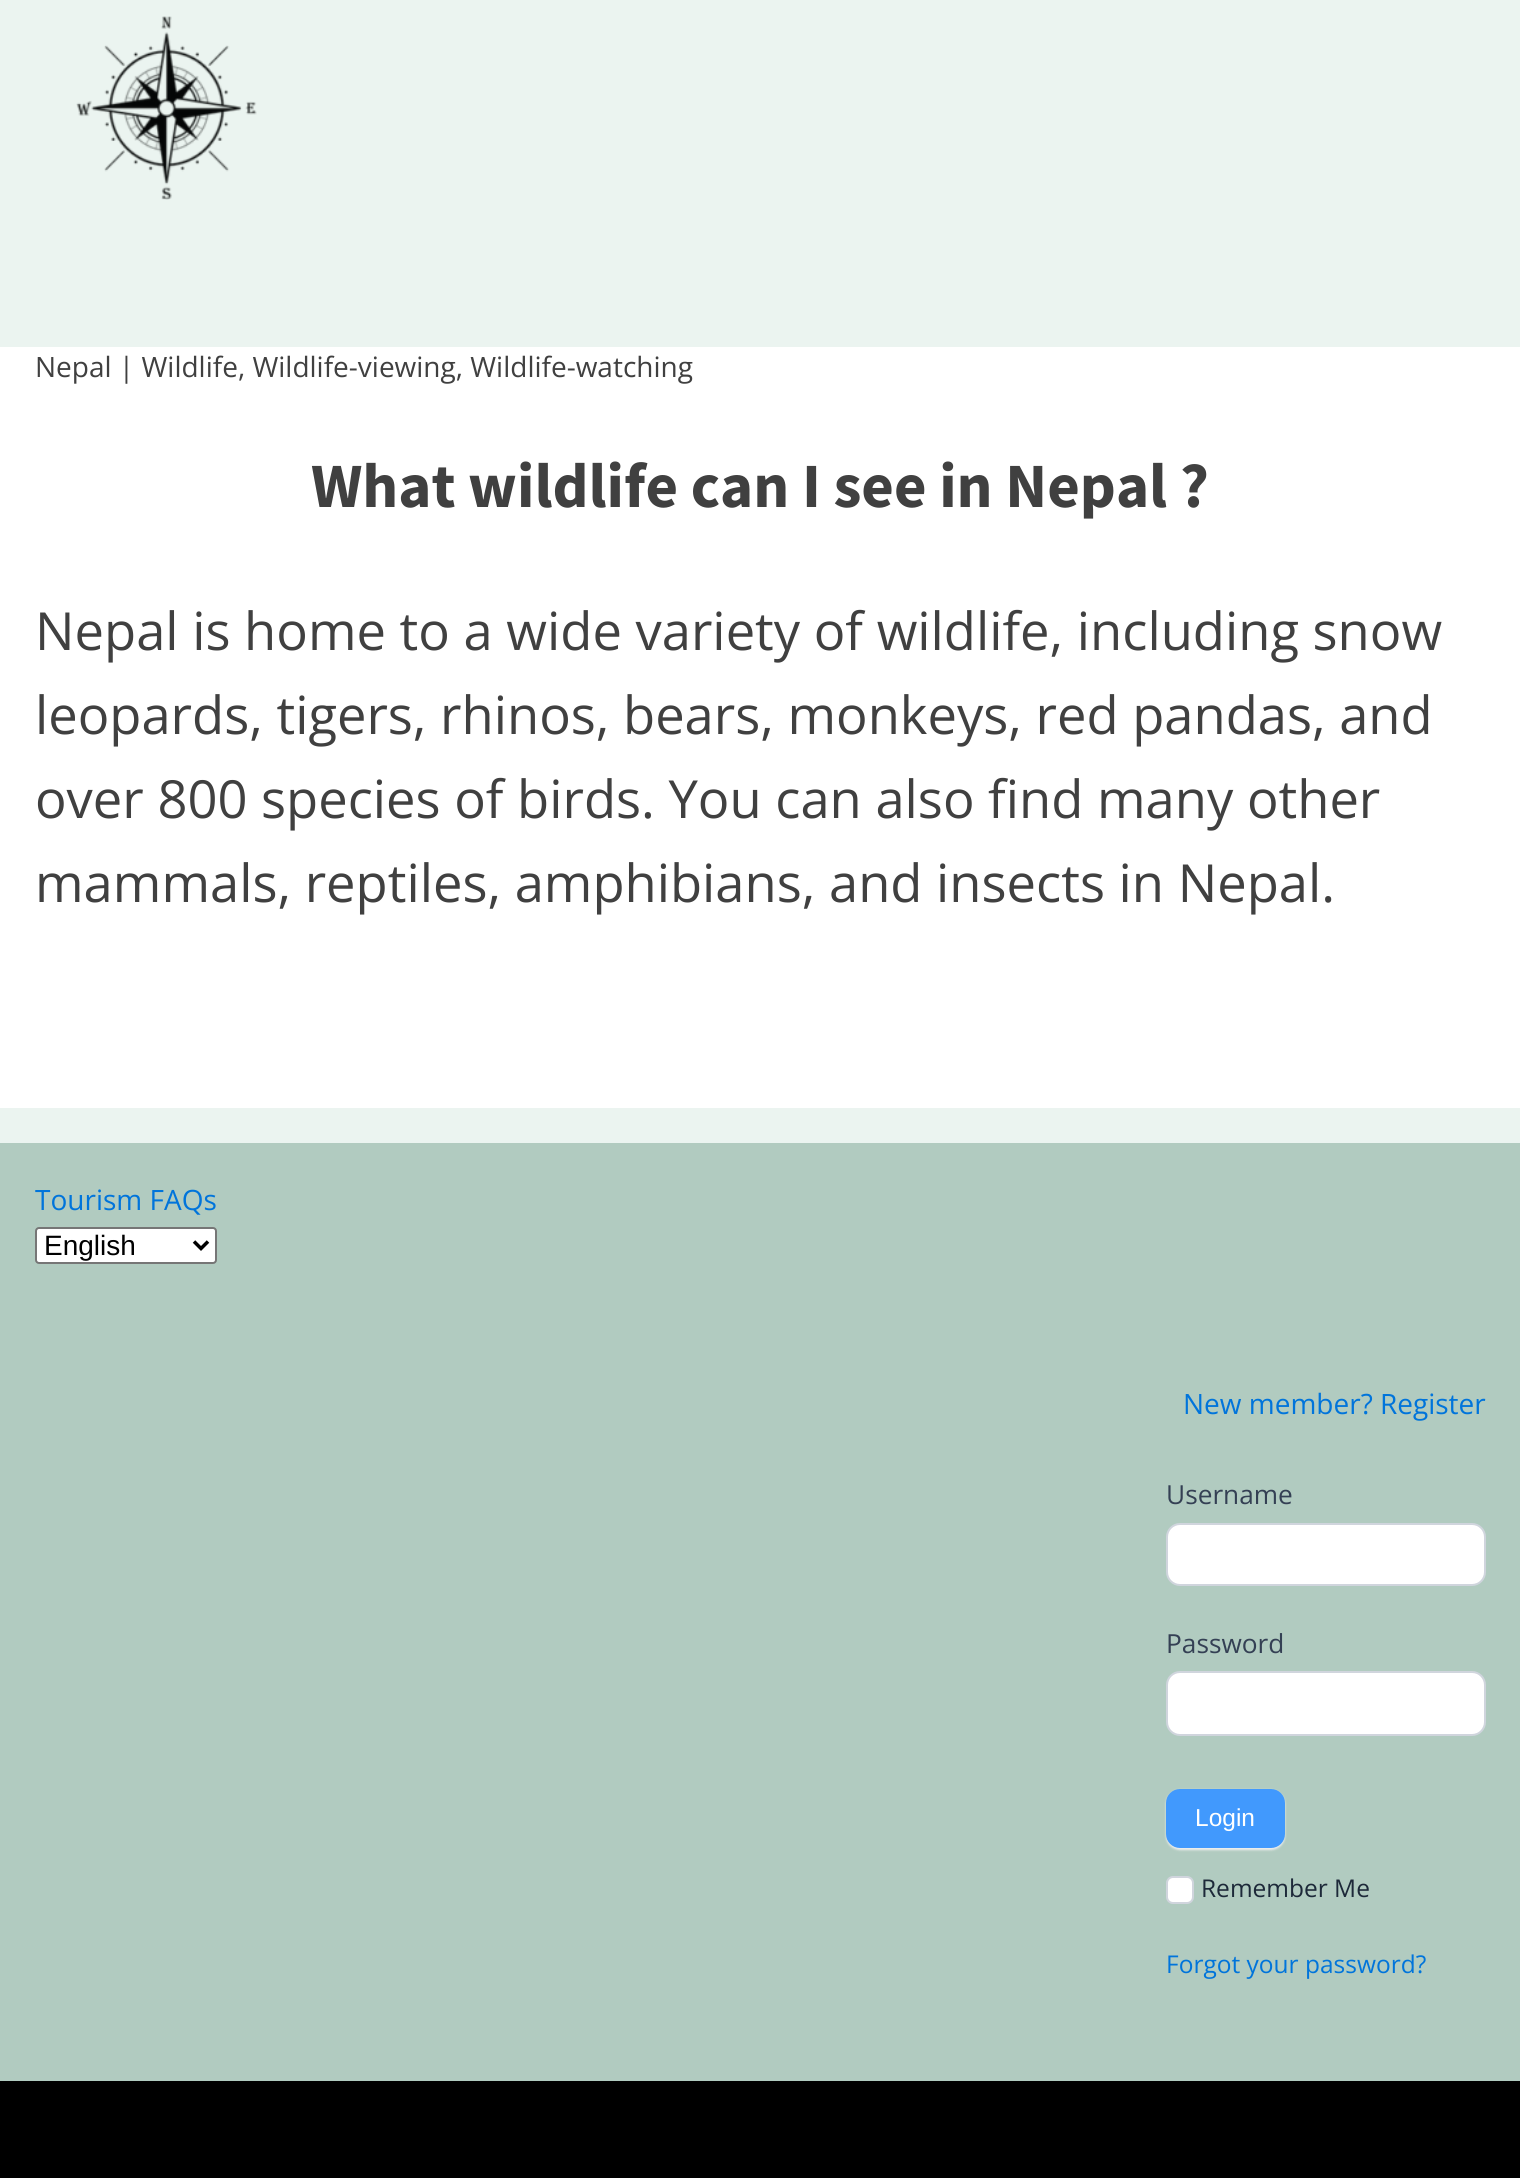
#include <cairo/cairo.h>
#include <math.h>
#include <stddef.h>

static cairo_t *cr;

static void use_color(int r, int g, int b) {
  cairo_set_source_rgb(cr, r / 255.0, g / 255.0, b / 255.0);
}

static void text(double x, double y, const char *s, const char *family, double size, int italic, int bold, int r, int g, int b) {
  cairo_select_font_face(cr, family, italic ? CAIRO_FONT_SLANT_ITALIC : CAIRO_FONT_SLANT_NORMAL,
    bold ? CAIRO_FONT_WEIGHT_BOLD : CAIRO_FONT_WEIGHT_NORMAL);
  cairo_set_font_size(cr, size);
  use_color(r, g, b);
  cairo_move_to(cr, x, y);
  cairo_show_text(cr, s);
}

static void box(double x, double y, double w, double h, int r, int g, int b) {
  use_color(r, g, b);
  cairo_rectangle(cr, x, y, w, h);
  cairo_fill(cr);
}

static void round_rect(double x, double y, double w, double h, double r) {
  cairo_new_sub_path(cr);
  cairo_arc(cr, x + w - r, y + h - r, r, 0, M_PI / 2);
  cairo_arc(cr, x + r, y + h - r, r, M_PI / 2, M_PI);
  cairo_arc(cr, x + r, y + r, r, M_PI, 1.5 * M_PI);
  cairo_arc(cr, x + w - r, y + r, r, 1.5 * M_PI, 2 * M_PI);
  cairo_close_path(cr);
}

static void shadow(double x, double y, double w, double h, double r, double blur, double alpha) {
  cairo_push_group_with_content(cr, CAIRO_CONTENT_ALPHA);
  cairo_set_operator(cr, CAIRO_OPERATOR_SOURCE);
  for (int i = 15; i >= -15 && fmin(w, h) + blur * i / 3 > 0; i -= 2) {
    double e = blur * i / 6;
    cairo_set_source_rgba(cr, 0, 0, 0, alpha * erfc((i - 1) / 8.5) / 2);
    round_rect(x - e, y - e, w + 2 * e, h + 2 * e, fmax(0, fmin(r + e + blur * .6, fmin(w, h) / 2 + e)));
    cairo_fill(cr);
  }
  cairo_pattern_t *soft = cairo_pop_group(cr);
  cairo_mask(cr, soft);
  cairo_pattern_destroy(soft);
}

static void picture(const char *path, double x, double y, double w, double h) {
  cairo_surface_t *image = cairo_image_surface_create_from_png(path);
  cairo_save(cr);
  cairo_set_source_surface(cr, image, x, y);
  cairo_rectangle(cr, x, y, w, h);
  cairo_fill(cr);
  cairo_restore(cr);
  cairo_surface_destroy(image);
}

static void draw(void) {
  use_color(235, 244, 240);
  cairo_paint(cr);
  picture("img_01.png", 76, 16, 181, 184);
  box(0, 347, 1520, 761, 255, 255, 255);
  box(0, 1143, 1520, 938, 177, 203, 192);
  use_color(255, 255, 255);
  round_rect(36, 1228, 180, 35, 3);
  cairo_fill_preserve(cr);
  use_color(118, 118, 118);
  cairo_stroke(cr);
  cairo_new_path(cr);
  cairo_move_to(cr, 194, 1241.5);
  cairo_line_to(cr, 201, 1248.5);
  cairo_line_to(cr, 208, 1241.5);
  use_color(0, 0, 0);
  cairo_set_line_width(cr, 3.5);
  cairo_stroke(cr);
  use_color(255, 255, 255);
  round_rect(1167, 1524, 318, 61, 13);
  cairo_fill_preserve(cr);
  use_color(208, 213, 221);
  cairo_set_line_width(cr, 2);
  cairo_stroke(cr);
  use_color(255, 255, 255);
  round_rect(1167, 1672, 318, 63, 13);
  cairo_fill_preserve(cr);
  use_color(208, 213, 221);
  cairo_stroke(cr);
  use_color(238, 238, 238);
  shadow(1166, 1790, 119, 60, 14, 1, 1);
  use_color(65, 153, 253);
  round_rect(1167, 1790, 117, 57, 13);
  cairo_fill_preserve(cr);
  cairo_stroke(cr);
  use_color(255, 255, 255);
  round_rect(1167, 1877, 26, 26, 6);
  cairo_fill_preserve(cr);
  use_color(208, 213, 221);
  cairo_stroke(cr);
  box(0, 2081, 1520, 97, 0, 0, 0);
  text(35, 377, "Nepal | Wildlife, Wildlife-viewing, Wildlife-watching", "Open Sans", 28, 0, 0, 64, 64, 64);
  text(311, 507, "What wildlife can I see in Nepal ?", "Source Sans Pro", 63, 0, 1, 64, 64, 64);
  text(35, 650, "Nepal is home to a wide variety of wildlife, including snow", "Open Sans", 52.5, 0, 0, 64, 64, 64);
  text(35, 734, "leopards, tigers, rhinos, bears, monkeys, red pandas, and", "Open Sans", 52.5, 0, 0, 64, 64, 64);
  text(35, 818, "over 800 species of birds. You can also find many other", "Open Sans", 52.5, 0, 0, 64, 64, 64);
  text(35, 902, "mammals, reptiles, amphibians, and insects in Nepal.", "Open Sans", 52.5, 0, 0, 64, 64, 64);
  text(35, 1210, "Tourism FAQs", "Open Sans", 28, 0, 0, 0, 116, 219);
  text(44, 1255, "English", "Liberation Sans", 28, 0, 0, 0, 0, 0);
  text(1183, 1414, "New member? Register", "Open Sans", 28, 0, 0, 0, 116, 219);
  text(1166, 1504, "Username", "Open Sans", 26.25, 0, 0, 52, 64, 84);
  text(1166, 1653, "Password", "Open Sans", 26.25, 0, 0, 52, 64, 84);
  text(1195, 1826, "Login", "Liberation Sans", 24.5, 0, 0, 255, 255, 255);
  text(1201, 1897, "Remember Me", "Open Sans", 24.5, 0, 0, 29, 41, 57);
  text(1166, 1973, "Forgot your password?", "Open Sans", 24.5, 0, 0, 0, 116, 219);
}

int main(void) {
  cairo_surface_t *surface = cairo_image_surface_create(CAIRO_FORMAT_RGB24, 1520, 2178);
  cr = cairo_create(surface);
  cairo_font_options_t *options = cairo_font_options_create();
  cairo_font_options_set_hint_metrics(options, CAIRO_HINT_METRICS_OFF);
  cairo_font_options_set_hint_style(options, CAIRO_HINT_STYLE_NONE);
  cairo_set_font_options(cr, options);
  cairo_set_miter_limit(cr, 4);
  draw();
  cairo_surface_write_to_png(surface, "out.png");
  cairo_font_options_destroy(options);
  cairo_destroy(cr);
  cairo_surface_destroy(surface);
  return 0;
}
